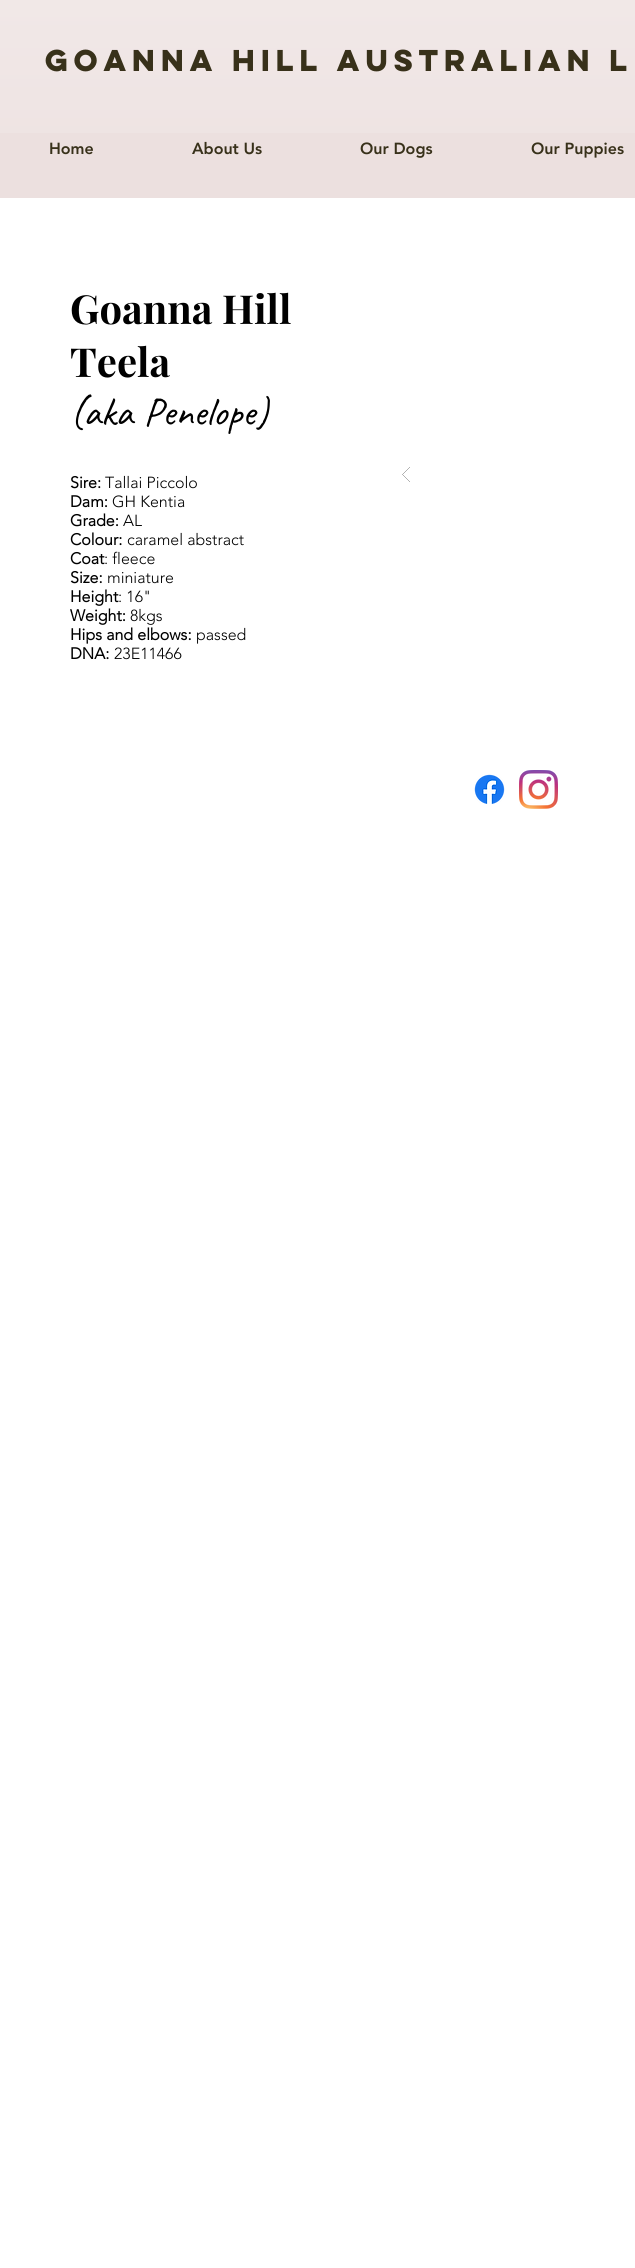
#include <cairo/cairo.h>
#include <math.h>
#include <stddef.h>

static cairo_t *cr;

static void use_color(int r, int g, int b) {
  cairo_set_source_rgb(cr, r / 255.0, g / 255.0, b / 255.0);
}

static void text(double x, double y, const char *s, const char *family, double size, int italic, int bold, int r, int g, int b) {
  cairo_select_font_face(cr, family, italic ? CAIRO_FONT_SLANT_ITALIC : CAIRO_FONT_SLANT_NORMAL,
    bold ? CAIRO_FONT_WEIGHT_BOLD : CAIRO_FONT_WEIGHT_NORMAL);
  cairo_set_font_size(cr, size);
  use_color(r, g, b);
  cairo_move_to(cr, x, y);
  cairo_show_text(cr, s);
}

static void spaced_text(double x, double y, const char *s, double letter, double word) {
  cairo_move_to(cr, x, y);
  while (*s) {
    char ch[5] = {0};
    int n = 0;
    do ch[n++] = *s++; while ((*s & 0xC0) == 0x80);
    cairo_show_text(cr, ch);
    cairo_rel_move_to(cr, letter + word * (*ch == ' '), 0);
  }
}

static void box(double x, double y, double w, double h, int r, int g, int b) {
  use_color(r, g, b);
  cairo_rectangle(cr, x, y, w, h);
  cairo_fill(cr);
}

static void picture(const char *path, double x, double y, double w, double h) {
  cairo_surface_t *image = cairo_image_surface_create_from_png(path);
  cairo_save(cr);
  cairo_set_source_surface(cr, image, x, y);
  cairo_rectangle(cr, x, y, w, h);
  cairo_fill(cr);
  cairo_restore(cr);
  cairo_surface_destroy(image);
}

static void draw(void) {
  use_color(255, 255, 255);
  cairo_paint(cr);
  box(0, 0, 635, 198, 236, 224, 223);
  picture("img_01.png", 0, 0, 635, 133);
  picture("img_02.png", 402, 467, 8, 15);
  picture("img_03.png", 474, 774, 31, 30);
  picture("img_04.png", 519, 770, 39, 39);
  text(45, 71, "Goanna Hill Australian L", "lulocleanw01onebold", 27, 0, 1, 56, 49, 26);
  text(49, 154, "Home", "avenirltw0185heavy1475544 Black", 16, 0, 0, 56, 49, 26);
  text(192, 154, "About Us", "avenirltw0185heavy1475544 Black", 16, 0, 0, 56, 49, 26);
  text(360, 154, "Our Dogs", "avenirltw0185heavy1475544 Black", 16, 0, 0, 56, 49, 26);
  text(531, 154, "Our Puppies", "avenirltw0185heavy1475544 Black", 16, 0, 0, 56, 49, 26);
  text(70, 324, "Goanna Hill", "Playfair Display", 40, 0, 1, 0, 0, 0);
  text(70, 377, "Teela", "Playfair Display", 40, 0, 1, 0, 0, 0);
  cairo_select_font_face(cr, "Caveat", CAIRO_FONT_SLANT_NORMAL, CAIRO_FONT_WEIGHT_NORMAL);
  spaced_text(70, 425, "(aka Penelope)", 0, 1);
  text(70, 488, "Sire:", "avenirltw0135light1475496", 16, 0, 1, 0, 0, 0);
  text(105, 488, "Tallai Piccolo", "avenirltw0135light1475496 Light", 16, 0, 0, 0, 0, 0);
  text(70, 507, "Dam:", "avenirltw0135light1475496", 16, 0, 1, 0, 0, 0);
  text(112, 507, "GH Kentia", "avenirltw0135light1475496 Light", 16, 0, 0, 0, 0, 0);
  text(70, 526, "Grade:", "avenirltw0135light1475496", 16, 0, 1, 0, 0, 0);
  text(123, 526, "AL", "avenirltw0135light1475496 Light", 16, 0, 0, 0, 0, 0);
  text(70, 545, "Colour:", "avenirltw0135light1475496", 16, 0, 1, 0, 0, 0);
  text(127, 545, "caramel abstract", "avenirltw0135light1475496 Light", 16, 0, 0, 0, 0, 0);
  text(70, 564, "Coat", "avenirltw0135light1475496", 16, 0, 1, 0, 0, 0);
  text(104, 564, ": fleece", "avenirltw0135light1475496 Light", 16, 0, 0, 0, 0, 0);
  text(70, 583, "Size:", "avenirltw0135light1475496", 16, 0, 1, 0, 0, 0);
  text(107, 583, "miniature", "avenirltw0135light1475496 Light", 16, 0, 0, 0, 0, 0);
  text(70, 602, "Height", "avenirltw0135light1475496", 16, 0, 1, 0, 0, 0);
  text(118, 602, ": 16\"", "avenirltw0135light1475496 Light", 16, 0, 0, 0, 0, 0);
  text(70, 621, "Weight:", "avenirltw0135light1475496", 16, 0, 1, 0, 0, 0);
  text(130, 621, "8kgs", "avenirltw0135light1475496 Light", 16, 0, 0, 0, 0, 0);
  text(70, 640, "Hips and elbows:", "avenirltw0135light1475496", 16, 0, 1, 0, 0, 0);
  text(196, 640, "passed", "avenirltw0135light1475496 Light", 16, 0, 0, 0, 0, 0);
  text(70, 659, "DNA:", "avenirltw0135light1475496", 16, 0, 1, 0, 0, 0);
  text(114, 659, "23E11466", "avenirltw0135light1475496 Light", 16, 0, 0, 0, 0, 0);
}

int main(void) {
  cairo_surface_t *surface = cairo_image_surface_create(CAIRO_FORMAT_RGB24, 635, 2268);
  cr = cairo_create(surface);
  cairo_font_options_t *options = cairo_font_options_create();
  cairo_font_options_set_hint_metrics(options, CAIRO_HINT_METRICS_OFF);
  cairo_font_options_set_hint_style(options, CAIRO_HINT_STYLE_NONE);
  cairo_set_font_options(cr, options);
  cairo_set_miter_limit(cr, 4);
  draw();
  cairo_surface_write_to_png(surface, "out.png");
  cairo_font_options_destroy(options);
  cairo_destroy(cr);
  cairo_surface_destroy(surface);
  return 0;
}
